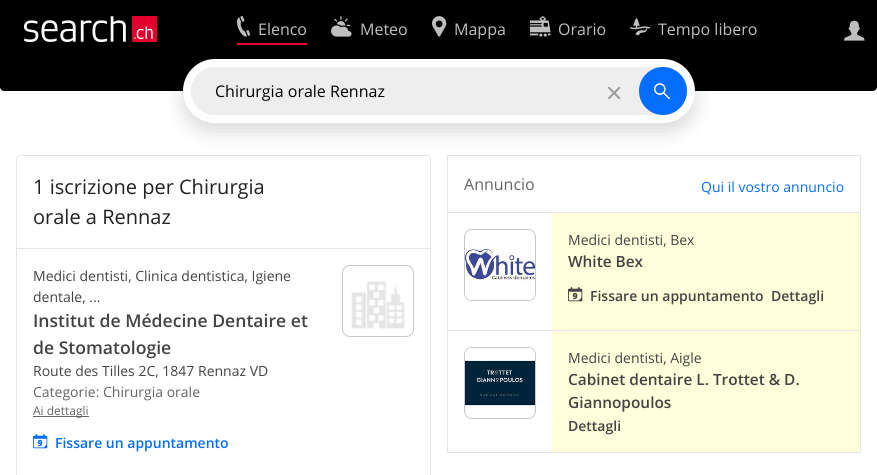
#include <cairo/cairo.h>
#include <math.h>
#include <stddef.h>

static cairo_t *cr;

static void use_color(int r, int g, int b) {
  cairo_set_source_rgb(cr, r / 255.0, g / 255.0, b / 255.0);
}

static void text(double x, double y, const char *s, const char *family, double size, int italic, int bold, int r, int g, int b) {
  cairo_select_font_face(cr, family, italic ? CAIRO_FONT_SLANT_ITALIC : CAIRO_FONT_SLANT_NORMAL,
    bold ? CAIRO_FONT_WEIGHT_BOLD : CAIRO_FONT_WEIGHT_NORMAL);
  cairo_set_font_size(cr, size);
  use_color(r, g, b);
  cairo_move_to(cr, x, y);
  cairo_show_text(cr, s);
}

static void box(double x, double y, double w, double h, int r, int g, int b) {
  use_color(r, g, b);
  cairo_rectangle(cr, x, y, w, h);
  cairo_fill(cr);
}

static void round_rect(double x, double y, double w, double h, double r) {
  cairo_new_sub_path(cr);
  cairo_arc(cr, x + w - r, y + h - r, r, 0, M_PI / 2);
  cairo_arc(cr, x + r, y + h - r, r, M_PI / 2, M_PI);
  cairo_arc(cr, x + r, y + r, r, M_PI, 1.5 * M_PI);
  cairo_arc(cr, x + w - r, y + r, r, 1.5 * M_PI, 2 * M_PI);
  cairo_close_path(cr);
}

static void shadow(double x, double y, double w, double h, double r, double blur, double alpha) {
  cairo_push_group_with_content(cr, CAIRO_CONTENT_ALPHA);
  cairo_set_operator(cr, CAIRO_OPERATOR_SOURCE);
  for (int i = 15; i >= -15 && fmin(w, h) + blur * i / 3 > 0; i -= 2) {
    double e = blur * i / 6;
    cairo_set_source_rgba(cr, 0, 0, 0, alpha * erfc((i - 1) / 8.5) / 2);
    round_rect(x - e, y - e, w + 2 * e, h + 2 * e, fmax(0, fmin(r + e + blur * .6, fmin(w, h) / 2 + e)));
    cairo_fill(cr);
  }
  cairo_pattern_t *soft = cairo_pop_group(cr);
  cairo_mask(cr, soft);
  cairo_pattern_destroy(soft);
}

static void picture(const char *path, double x, double y, double w, double h) {
  cairo_surface_t *image = cairo_image_surface_create_from_png(path);
  cairo_save(cr);
  cairo_set_source_surface(cr, image, x, y);
  cairo_rectangle(cr, x, y, w, h);
  cairo_fill(cr);
  cairo_restore(cr);
  cairo_surface_destroy(image);
}

static void draw(void) {
  use_color(255, 255, 255);
  cairo_paint(cr);
  box(0, 0, 877, 59, 0, 0, 0);
  picture("img_01.png", 24, 16, 133, 26);
  box(237, 43, 70, 2, 228, 0, 44);
  picture("img_02.png", 237, 16, 14, 21);
  picture("img_03.png", 331, 16, 21, 21);
  picture("img_04.png", 432, 16, 15, 21);
  picture("img_05.png", 530, 16, 21, 21);
  picture("img_06.png", 630, 17, 21, 19);
  picture("img_07.png", 844, 20, 21, 21);
  use_color(0, 0, 0);
  cairo_new_path(cr);
  cairo_move_to(cr, 0, 59);
  cairo_line_to(cr, 877, 59);
  cairo_line_to(cr, 877, 87);
  cairo_curve_to(cr, 877, 89, 875, 91, 873, 91);
  cairo_line_to(cr, 4, 91);
  cairo_curve_to(cr, 2, 91, 0, 89, 0, 87);
  cairo_close_path(cr);
  cairo_fill(cr);
  round_rect(16.5, 155.5, 414, 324, 3.5);
  use_color(229, 229, 229);
  cairo_set_line_width(cr, 1);
  cairo_stroke(cr);
  cairo_rectangle(cr, 447.5, 155.5, 413, 297);
  cairo_stroke(cr);
  use_color(0, 0, 0);
  shadow(183, 67, 512, 64, 32, 10, 0.15);
  use_color(255, 255, 255);
  round_rect(183, 59, 512, 64, 32);
  cairo_fill(cr);
  use_color(238, 238, 238);
  round_rect(191, 67, 496, 48, 24);
  cairo_fill(cr);
  round_rect(191, 67, 400, 48, 24);
  cairo_fill(cr);
  picture("img_08.png", 608, 86, 13, 14);
  use_color(5, 109, 255);
  cairo_arc(cr, 663, 91, 24, 0, 2 * M_PI);
  cairo_fill(cr);
  picture("img_09.png", 654, 83, 16, 17);
  box(17, 248, 413, 1, 230, 230, 230);
  box(33, 416, 56, 1, 102, 102, 102);
  picture("img_10.png", 33, 434, 15, 15);
  round_rect(342.5, 265.5, 71, 71, 7.5);
  use_color(200, 200, 200);
  cairo_stroke(cr);
  picture("img_11.png", 351, 281, 54, 48);
  box(448, 212, 412, 1, 230, 230, 230);
  round_rect(464.5, 229.5, 71, 71, 7.5);
  use_color(200, 200, 200);
  cairo_stroke(cr);
  picture("img_12.png", 465, 230, 70, 70);
  box(552, 213, 308, 117, 255, 255, 219);
  picture("img_13.png", 568, 287, 15, 15);
  box(448, 330, 412, 1, 230, 230, 230);
  round_rect(464.5, 347.5, 71, 71, 7.5);
  use_color(200, 200, 200);
  cairo_stroke(cr);
  picture("img_14.png", 465, 348, 70, 70);
  use_color(255, 255, 219);
  cairo_new_path(cr);
  cairo_move_to(cr, 552, 331);
  cairo_line_to(cr, 860, 331);
  cairo_line_to(cr, 860, 448);
  cairo_curve_to(cr, 860, 450, 858, 452, 856, 452);
  cairo_line_to(cr, 552, 452);
  cairo_close_path(cr);
  cairo_fill(cr);
  text(258, 35, "Elenco", "Open Sans", 16, 0, 0, 191, 191, 191);
  text(360, 35, "Meteo", "Open Sans", 16, 0, 0, 191, 191, 191);
  text(454, 35, "Mappa", "Open Sans", 16, 0, 0, 191, 191, 191);
  text(558, 35, "Orario", "Open Sans", 16, 0, 0, 191, 191, 191);
  text(658, 35, "Tempo libero", "Open Sans", 16, 0, 0, 191, 191, 191);
  text(215, 97, "Chirurgia orale Rennaz", "Open Sans", 16, 0, 0, 0, 0, 0);
  text(33, 194, "1 iscrizione per Chirurgia", "Open Sans", 20, 0, 0, 34, 34, 34);
  text(33, 224, "orale a Rennaz", "Open Sans", 20, 0, 0, 34, 34, 34);
  text(33, 281, "Medici dentisti, Clinica dentistica, Igiene", "Open Sans", 14, 0, 0, 68, 68, 68);
  text(33, 302, "dentale, ...", "Open Sans", 14, 0, 0, 68, 68, 68);
  text(33, 327, "Institut de Médecine Dentaire et", "Open Sans SemiBold", 17.6, 0, 0, 68, 68, 68);
  text(33, 354, "de Stomatologie", "Open Sans SemiBold", 17.6, 0, 0, 68, 68, 68);
  text(33, 376, "Route des Tilles 2C, 1847 Rennaz VD", "Open Sans", 14, 0, 0, 68, 68, 68);
  text(33, 397, "Categorie: Chirurgia orale", "Open Sans", 14, 0, 0, 102, 102, 102);
  text(33, 415, "Ai dettagli", "Open Sans", 12, 0, 0, 102, 102, 102);
  text(55, 448, "Fissare un appuntamento", "Open Sans SemiBold", 14, 0, 0, 5, 109, 255);
  text(464, 190, "Annuncio", "Open Sans", 16, 0, 0, 102, 102, 102);
  text(701, 192, "Qui il vostro annuncio", "Open Sans", 14, 0, 0, 5, 109, 255);
  text(568, 245, "Medici dentisti, Bex", "Open Sans", 14, 0, 0, 68, 68, 68);
  text(568, 267, "White Bex", "Open Sans SemiBold", 15.4, 0, 0, 68, 68, 68);
  text(590, 301, "Fissare un appuntamento", "Open Sans SemiBold", 14, 0, 0, 68, 68, 68);
  text(771, 301, "Dettagli", "Open Sans SemiBold", 14, 0, 0, 68, 68, 68);
  text(568, 363, "Medici dentisti, Aigle", "Open Sans", 14, 0, 0, 68, 68, 68);
  text(568, 385, "Cabinet dentaire L. Trottet & D.", "Open Sans SemiBold", 15.4, 0, 0, 68, 68, 68);
  text(568, 408, "Giannopoulos", "Open Sans SemiBold", 15.4, 0, 0, 68, 68, 68);
  text(568, 431, "Dettagli", "Open Sans SemiBold", 14, 0, 0, 68, 68, 68);
}

int main(void) {
  cairo_surface_t *surface = cairo_image_surface_create(CAIRO_FORMAT_RGB24, 877, 475);
  cr = cairo_create(surface);
  cairo_font_options_t *options = cairo_font_options_create();
  cairo_font_options_set_hint_metrics(options, CAIRO_HINT_METRICS_OFF);
  cairo_font_options_set_hint_style(options, CAIRO_HINT_STYLE_NONE);
  cairo_set_font_options(cr, options);
  cairo_set_miter_limit(cr, 4);
  draw();
  cairo_surface_write_to_png(surface, "out.png");
  cairo_font_options_destroy(options);
  cairo_destroy(cr);
  cairo_surface_destroy(surface);
  return 0;
}
